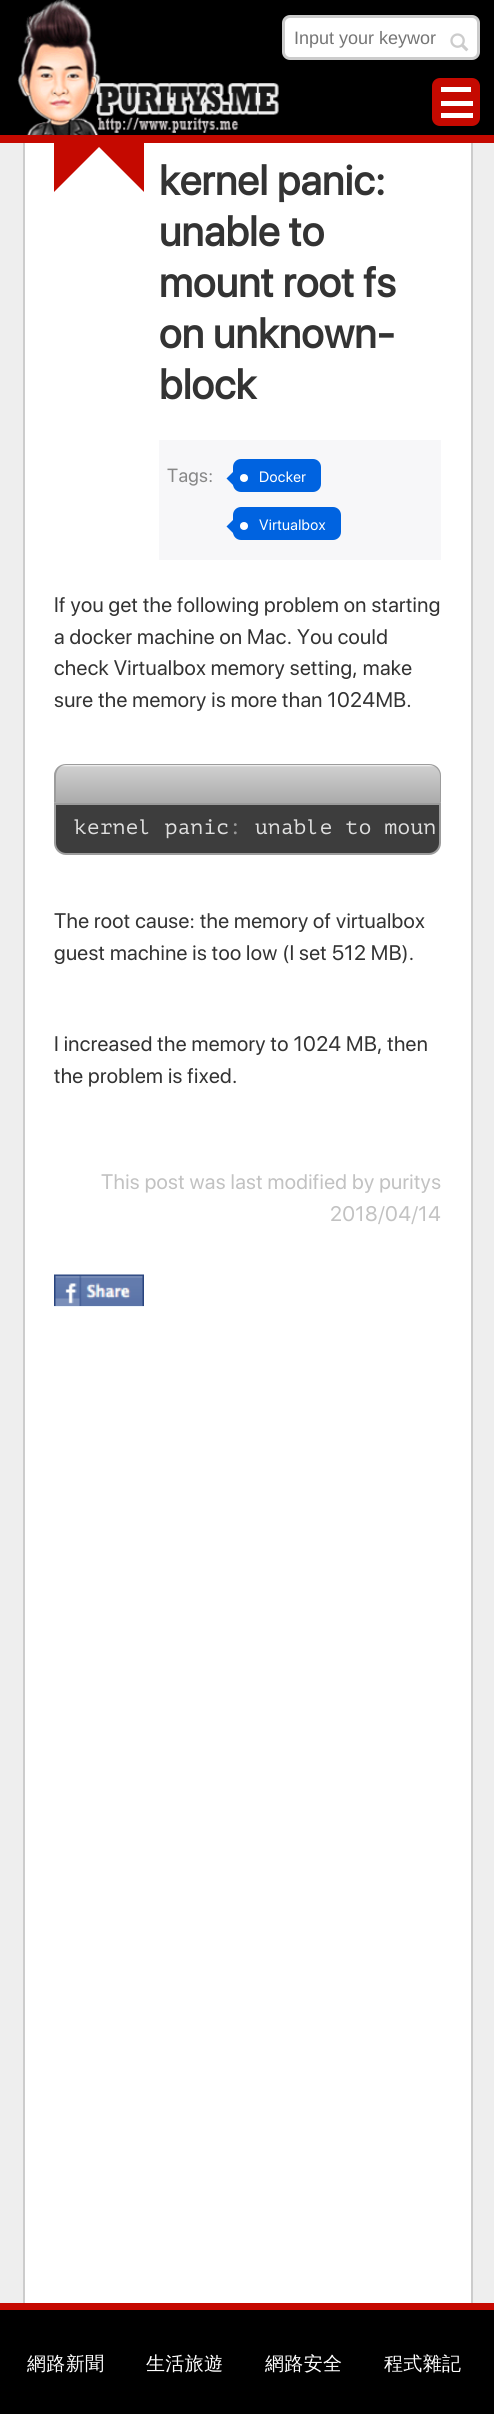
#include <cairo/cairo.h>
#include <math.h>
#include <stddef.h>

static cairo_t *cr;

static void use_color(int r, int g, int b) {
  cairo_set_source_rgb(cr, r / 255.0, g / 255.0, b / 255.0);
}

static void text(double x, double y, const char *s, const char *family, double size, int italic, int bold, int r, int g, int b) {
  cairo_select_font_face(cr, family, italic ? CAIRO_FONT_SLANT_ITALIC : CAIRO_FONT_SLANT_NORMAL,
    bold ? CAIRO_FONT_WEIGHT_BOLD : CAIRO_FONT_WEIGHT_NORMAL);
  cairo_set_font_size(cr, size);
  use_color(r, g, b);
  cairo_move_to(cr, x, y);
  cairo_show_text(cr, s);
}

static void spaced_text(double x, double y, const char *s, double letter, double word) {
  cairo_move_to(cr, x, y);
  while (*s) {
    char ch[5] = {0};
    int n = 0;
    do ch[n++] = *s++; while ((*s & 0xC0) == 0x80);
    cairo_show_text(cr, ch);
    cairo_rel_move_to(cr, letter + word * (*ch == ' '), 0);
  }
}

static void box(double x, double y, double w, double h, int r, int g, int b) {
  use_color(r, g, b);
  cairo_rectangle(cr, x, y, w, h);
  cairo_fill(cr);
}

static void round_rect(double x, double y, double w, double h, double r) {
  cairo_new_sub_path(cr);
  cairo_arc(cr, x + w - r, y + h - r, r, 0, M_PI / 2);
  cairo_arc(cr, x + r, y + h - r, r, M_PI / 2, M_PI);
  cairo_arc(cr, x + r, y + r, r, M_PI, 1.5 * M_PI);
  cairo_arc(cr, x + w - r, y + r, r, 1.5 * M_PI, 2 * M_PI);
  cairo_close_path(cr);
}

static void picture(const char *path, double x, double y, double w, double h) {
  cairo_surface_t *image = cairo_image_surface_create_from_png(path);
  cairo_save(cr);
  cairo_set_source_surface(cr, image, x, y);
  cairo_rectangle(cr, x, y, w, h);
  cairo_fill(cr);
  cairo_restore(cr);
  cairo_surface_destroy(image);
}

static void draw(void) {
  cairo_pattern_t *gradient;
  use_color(238, 238, 238);
  cairo_paint(cr);
  box(0, 0, 494, 135, 0, 0, 0);
  box(0, 135, 494, 8, 197, 9, 0);
  picture("img_01.png", 17, 0, 262, 135);
  round_rect(432, 78, 48, 48, 8);
  cairo_fill(cr);
  box(441, 87, 30, 5, 255, 255, 255);
  box(441, 101, 32, 5, 255, 255, 255);
  box(441, 113, 32, 5, 255, 255, 255);
  round_rect(283.5, 16.5, 195, 42, 6.5);
  cairo_fill_preserve(cr);
  use_color(204, 204, 204);
  cairo_set_line_width(cr, 3);
  cairo_stroke(cr);
  picture("img_02.png", 450, 33, 19, 19);
  box(25, 143, 446, 2160, 255, 255, 255);
  box(471, 143, 2, 2160, 204, 204, 204);
  box(23, 143, 2, 2160, 204, 204, 204);
  box(54, 143, 90, 49, 197, 9, 0);
  use_color(255, 255, 255);
  cairo_new_path(cr);
  cairo_move_to(cr, 144, 192);
  cairo_line_to(cr, 54, 192);
  cairo_line_to(cr, 99, 147);
  cairo_close_path(cr);
  cairo_fill(cr);
  box(159, 440, 282, 120, 247, 247, 249);
  use_color(0, 99, 224);
  round_rect(233, 459, 88, 33, 8);
  cairo_fill(cr);
  cairo_new_path(cr);
  cairo_move_to(cr, 234, 471);
  cairo_line_to(cr, 234, 486);
  cairo_line_to(cr, 226.5, 478.5);
  cairo_close_path(cr);
  cairo_fill(cr);
  use_color(255, 255, 255);
  cairo_arc(cr, 244, 478, 4, 0, 2 * M_PI);
  cairo_fill(cr);
  use_color(0, 99, 224);
  round_rect(233, 507, 108, 33, 8);
  cairo_fill(cr);
  cairo_new_path(cr);
  cairo_move_to(cr, 234, 519);
  cairo_line_to(cr, 234, 534);
  cairo_line_to(cr, 226.5, 526.5);
  cairo_close_path(cr);
  cairo_fill(cr);
  use_color(255, 255, 255);
  cairo_arc(cr, 244, 526, 4, 0, 2 * M_PI);
  cairo_fill(cr);
  cairo_save(cr);
  cairo_new_path(cr);
  cairo_move_to(cr, 66, 764);
  cairo_line_to(cr, 429, 764);
  cairo_curve_to(cr, 435.5, 764, 441, 769.5, 441, 776);
  cairo_line_to(cr, 441, 803);
  cairo_line_to(cr, 54, 803);
  cairo_line_to(cr, 54, 776);
  cairo_curve_to(cr, 54, 769.5, 59.5, 764, 66, 764);
  cairo_close_path(cr);
  cairo_clip(cr);
  gradient = cairo_pattern_create_linear(248, 765, 248, 803);
  cairo_pattern_add_color_stop_rgba(gradient, 0, 0.969, 0.969, 0.969, 1);
  cairo_pattern_add_color_stop_rgba(gradient, 0.05, 0.812, 0.812, 0.812, 1);
  cairo_pattern_add_color_stop_rgba(gradient, 1, 0.667, 0.667, 0.667, 1);
  cairo_set_source(cr, gradient);
  cairo_pattern_destroy(gradient);
  cairo_rectangle(cr, 54, 765, 387, 38);
  cairo_fill(cr);
  cairo_restore(cr);
  use_color(156, 156, 156);
  cairo_set_fill_rule(cr, CAIRO_FILL_RULE_EVEN_ODD);
  cairo_new_path(cr);
  cairo_move_to(cr, 66, 764);
  cairo_line_to(cr, 429, 764);
  cairo_curve_to(cr, 436, 764, 441, 769, 441, 776);
  cairo_line_to(cr, 441, 802);
  cairo_line_to(cr, 54, 802);
  cairo_line_to(cr, 54, 776);
  cairo_curve_to(cr, 54, 769, 59, 764, 66, 764);
  cairo_close_path(cr);
  cairo_move_to(cr, 66, 765);
  cairo_line_to(cr, 429, 765);
  cairo_curve_to(cr, 435, 765, 440, 770, 440, 776);
  cairo_line_to(cr, 440, 802);
  cairo_line_to(cr, 56, 802);
  cairo_line_to(cr, 56, 776);
  cairo_curve_to(cr, 56, 770, 60, 765, 66, 765);
  cairo_close_path(cr);
  cairo_fill(cr);
  use_color(61, 61, 61);
  cairo_new_path(cr);
  cairo_move_to(cr, 55, 804);
  cairo_line_to(cr, 440, 804);
  cairo_line_to(cr, 440, 843);
  cairo_curve_to(cr, 440, 849, 435, 854, 429, 854);
  cairo_line_to(cr, 66, 854);
  cairo_curve_to(cr, 60, 854, 55, 849, 55, 843);
  cairo_close_path(cr);
  cairo_fill_preserve(cr);
  use_color(156, 156, 156);
  cairo_set_line_width(cr, 2);
  cairo_stroke(cr);
  box(54, 1306, 90, 1, 235, 243, 251);
  picture("img_03.png", 54, 1274, 90, 32);
  box(0, 2310, 494, 104, 0, 0, 0);
  box(0, 2303, 494, 7, 197, 9, 0);
  text(294, 44, "Input your keywor", "Liberation Sans", 18, 0, 0, 117, 117, 117);
  cairo_select_font_face(cr, "SF Pro Display", CAIRO_FONT_SLANT_NORMAL, CAIRO_FONT_WEIGHT_BOLD);
  cairo_set_font_size(cr, 42);
  use_color(51, 51, 51);
  spaced_text(159, 195, "kernel panic:", 0.35, 0);
  spaced_text(159, 246, "unable to", 0.35, 0);
  spaced_text(159, 297, "mount root fs", 0.35, 0);
  spaced_text(159, 348, "on unknown-", 0.35, 0);
  spaced_text(159, 399, "block", 0.35, 0);
  cairo_select_font_face(cr, "SF Pro Display", CAIRO_FONT_SLANT_NORMAL, CAIRO_FONT_WEIGHT_NORMAL);
  cairo_set_font_size(cr, 19);
  use_color(136, 136, 136);
  spaced_text(167, 482, "Tags:", 0.35, 0);
  cairo_set_font_size(cr, 15);
  use_color(255, 255, 255);
  spaced_text(259, 482, "Docker", 0.35, 0);
  spaced_text(259, 530, "Virtualbox", 0.35, 0);
  cairo_set_font_size(cr, 21);
  use_color(51, 51, 51);
  spaced_text(54, 612, "If you get the following problem on starting", 0.35, 0);
  spaced_text(54, 644, "a docker machine on Mac. You could", 0.35, 0);
  spaced_text(54, 675, "check Virtualbox memory setting, make", 0.35, 0);
  spaced_text(54, 707, "sure the memory is more than 1024MB.", 0.35, 0);
  cairo_select_font_face(cr, "PT Mono", CAIRO_FONT_SLANT_NORMAL, CAIRO_FONT_WEIGHT_NORMAL);
  use_color(223, 223, 223);
  spaced_text(74, 834, "kernel panic", 0.35, 0);
  use_color(153, 153, 153);
  spaced_text(229, 834, ":", 0.35, 0);
  use_color(223, 223, 223);
  spaced_text(255, 834, "unable to moun", 0.35, 0);
  cairo_select_font_face(cr, "SF Pro Display", CAIRO_FONT_SLANT_NORMAL, CAIRO_FONT_WEIGHT_NORMAL);
  use_color(51, 51, 51);
  spaced_text(54, 928, "The root cause: the memory of virtualbox", 0.35, 0);
  spaced_text(54, 960, "guest machine is too low (I set 512 MB).", 0.35, 0);
  spaced_text(54, 1051, "I increased the memory to 1024 MB, then", 0.35, 0);
  spaced_text(54, 1083, "the problem is fixed.", 0.35, 0);
  use_color(194, 194, 194);
  spaced_text(101, 1189, "This post was last modified by puritys", 0.35, 0);
  spaced_text(330, 1221, "2018/04/14", 0.35, 0);
  cairo_select_font_face(cr, "WenQuanYi Zen Hei Medium", CAIRO_FONT_SLANT_NORMAL, CAIRO_FONT_WEIGHT_NORMAL);
  cairo_set_font_size(cr, 19);
  use_color(255, 255, 255);
  spaced_text(27, 2370, "網路新聞", 0.35, 0);
  spaced_text(146, 2370, "生活旅遊", 0.35, 0);
  spaced_text(265, 2370, "網路安全", 0.35, 0);
  spaced_text(384, 2370, "程式雜記", 0.35, 0);
}

int main(void) {
  cairo_surface_t *surface = cairo_image_surface_create(CAIRO_FORMAT_RGB24, 494, 2414);
  cr = cairo_create(surface);
  cairo_font_options_t *options = cairo_font_options_create();
  cairo_font_options_set_hint_metrics(options, CAIRO_HINT_METRICS_OFF);
  cairo_font_options_set_hint_style(options, CAIRO_HINT_STYLE_NONE);
  cairo_set_font_options(cr, options);
  cairo_set_miter_limit(cr, 4);
  draw();
  cairo_surface_write_to_png(surface, "out.png");
  cairo_font_options_destroy(options);
  cairo_destroy(cr);
  cairo_surface_destroy(surface);
  return 0;
}
